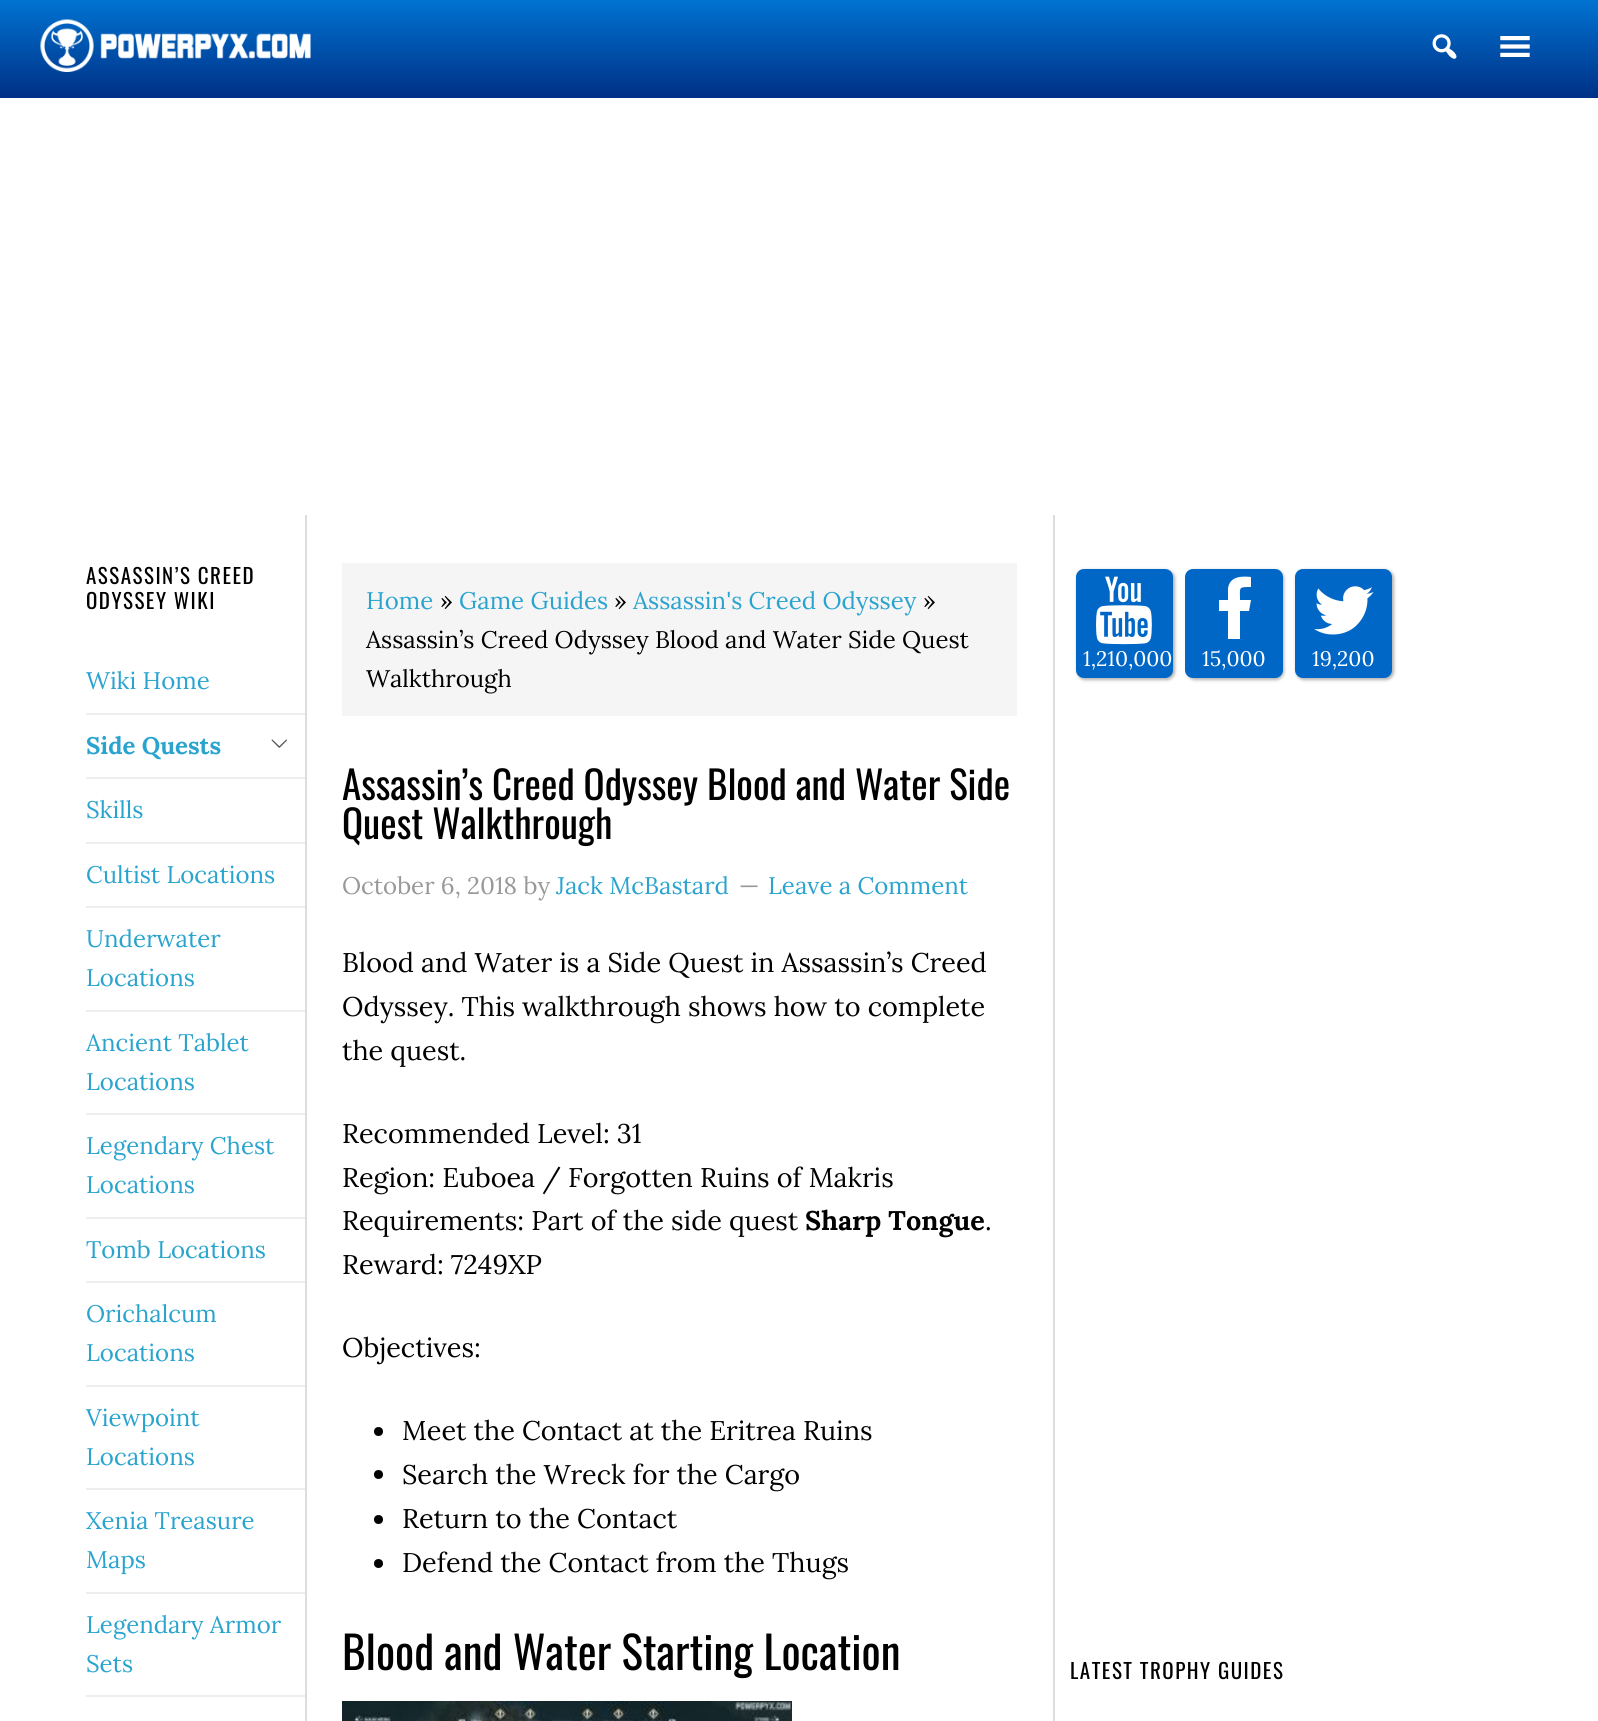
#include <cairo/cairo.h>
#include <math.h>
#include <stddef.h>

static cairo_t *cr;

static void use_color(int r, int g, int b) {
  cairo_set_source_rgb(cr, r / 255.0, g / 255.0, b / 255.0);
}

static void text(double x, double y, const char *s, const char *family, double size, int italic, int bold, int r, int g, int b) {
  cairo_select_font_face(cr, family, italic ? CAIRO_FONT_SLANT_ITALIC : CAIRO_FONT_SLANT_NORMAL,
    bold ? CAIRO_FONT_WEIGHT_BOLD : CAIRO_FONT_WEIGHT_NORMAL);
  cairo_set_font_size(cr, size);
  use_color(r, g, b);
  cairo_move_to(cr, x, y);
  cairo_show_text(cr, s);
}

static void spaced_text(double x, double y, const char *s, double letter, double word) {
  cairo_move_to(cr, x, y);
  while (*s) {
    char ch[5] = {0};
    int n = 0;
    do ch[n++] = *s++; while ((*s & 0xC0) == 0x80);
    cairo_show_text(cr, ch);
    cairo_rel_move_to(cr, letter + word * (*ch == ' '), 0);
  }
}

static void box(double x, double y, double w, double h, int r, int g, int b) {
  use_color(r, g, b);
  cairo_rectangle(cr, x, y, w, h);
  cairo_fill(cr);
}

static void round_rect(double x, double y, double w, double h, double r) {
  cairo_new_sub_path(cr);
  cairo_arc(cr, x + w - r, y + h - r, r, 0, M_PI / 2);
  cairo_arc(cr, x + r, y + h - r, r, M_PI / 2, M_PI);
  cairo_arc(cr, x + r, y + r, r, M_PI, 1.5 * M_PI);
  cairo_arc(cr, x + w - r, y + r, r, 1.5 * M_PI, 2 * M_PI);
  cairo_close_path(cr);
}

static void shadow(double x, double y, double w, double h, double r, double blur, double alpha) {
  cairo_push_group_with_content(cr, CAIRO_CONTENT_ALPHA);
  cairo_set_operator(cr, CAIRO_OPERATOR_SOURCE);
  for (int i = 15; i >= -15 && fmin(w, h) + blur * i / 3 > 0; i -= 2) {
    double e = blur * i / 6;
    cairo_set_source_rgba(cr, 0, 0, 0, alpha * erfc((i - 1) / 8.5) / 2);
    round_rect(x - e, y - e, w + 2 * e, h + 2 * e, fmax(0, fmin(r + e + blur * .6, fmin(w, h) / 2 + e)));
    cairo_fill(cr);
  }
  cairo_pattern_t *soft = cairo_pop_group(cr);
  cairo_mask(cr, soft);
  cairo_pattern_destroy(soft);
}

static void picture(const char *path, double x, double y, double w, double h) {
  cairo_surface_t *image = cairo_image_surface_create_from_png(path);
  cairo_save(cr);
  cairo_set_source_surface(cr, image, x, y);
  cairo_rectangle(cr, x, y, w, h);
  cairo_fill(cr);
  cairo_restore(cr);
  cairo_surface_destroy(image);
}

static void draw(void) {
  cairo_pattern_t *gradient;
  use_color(255, 255, 255);
  cairo_paint(cr);
  gradient = cairo_pattern_create_linear(800, 0, 800, 98);
  cairo_pattern_add_color_stop_rgba(gradient, 0, 0, 0.451, 0.82, 1);
  cairo_pattern_add_color_stop_rgba(gradient, 1, 0, 0.188, 0.525, 1);
  cairo_set_source(cr, gradient);
  cairo_pattern_destroy(gradient);
  cairo_rectangle(cr, 0, 0, 1598, 98);
  cairo_fill(cr);
  picture("img_01.png", 40, 19, 271, 53);
  picture("img_02.png", 1432, 34, 25, 25);
  picture("img_03.png", 1500, 36, 30, 21);
  box(86, 713, 219, 2, 238, 238, 238);
  box(86, 777, 219, 2, 238, 238, 238);
  picture("img_04.png", 271, 739, 16, 9);
  box(86, 842, 219, 2, 238, 238, 238);
  box(86, 906, 219, 2, 238, 238, 238);
  box(86, 1010, 219, 2, 238, 238, 238);
  box(86, 1113, 219, 2, 238, 238, 238);
  box(86, 1217, 219, 2, 238, 238, 238);
  box(86, 1281, 219, 2, 238, 238, 238);
  box(86, 1385, 219, 2, 238, 238, 238);
  box(86, 1488, 219, 2, 238, 238, 238);
  box(86, 1592, 219, 2, 238, 238, 238);
  box(86, 1695, 219, 2, 238, 238, 238);
  box(1053, 515, 2, 1206, 221, 221, 221);
  box(305, 515, 2, 1206, 221, 221, 221);
  box(342, 563, 675, 153, 245, 245, 245);
  use_color(0, 0, 0);
  cairo_arc(cr, 378.5, 1431.5, 4.5, 0, 2 * M_PI);
  cairo_fill(cr);
  cairo_arc(cr, 378.5, 1474.5, 4.5, 0, 2 * M_PI);
  cairo_fill(cr);
  cairo_arc(cr, 378.5, 1519.5, 4.5, 0, 2 * M_PI);
  cairo_fill(cr);
  cairo_arc(cr, 378.5, 1563.5, 4.5, 0, 2 * M_PI);
  cairo_fill(cr);
  picture("img_05.png", 342, 1701, 450, 20);
  use_color(179, 179, 179);
  shadow(1077, 570, 98, 110, 8, 1.5, 1);
  use_color(0, 103, 199);
  round_rect(1076, 569, 97, 109, 8);
  cairo_fill(cr);
  picture("img_06.png", 1096, 576, 56, 69);
  use_color(179, 179, 179);
  shadow(1187, 570, 97, 110, 8, 1.5, 1);
  use_color(0, 103, 199);
  round_rect(1185, 569, 98, 109, 8);
  cairo_fill(cr);
  use_color(255, 255, 255);
  cairo_new_path(cr);
  cairo_move_to(cr, 1251, 577);
  cairo_line_to(cr, 1251, 587);
  cairo_curve_to(cr, 1238, 587, 1240, 587, 1240, 600);
  cairo_line_to(cr, 1251, 600);
  cairo_line_to(cr, 1249, 611);
  cairo_line_to(cr, 1240, 611);
  cairo_line_to(cr, 1240, 639);
  cairo_line_to(cr, 1228, 639);
  cairo_line_to(cr, 1228, 611);
  cairo_line_to(cr, 1219, 611);
  cairo_line_to(cr, 1219, 600);
  cairo_line_to(cr, 1228, 600);
  cairo_line_to(cr, 1228, 588);
  cairo_curve_to(cr, 1230, 576, 1242, 576, 1251, 577);
  cairo_close_path(cr);
  cairo_fill(cr);
  use_color(179, 179, 179);
  shadow(1296, 570, 98, 110, 8, 1.5, 1);
  use_color(0, 103, 199);
  round_rect(1295, 569, 97, 109, 8);
  cairo_fill(cr);
  picture("img_07.png", 1314, 586, 60, 49);
  cairo_select_font_face(cr, "Oswald", CAIRO_FONT_SLANT_NORMAL, CAIRO_FONT_WEIGHT_NORMAL);
  cairo_set_font_size(cr, 21);
  use_color(0, 0, 0);
  spaced_text(86, 584, "ASSASSIN’S CREED", 1.5, 0);
  spaced_text(86, 609, "ODYSSEY WIKI", 1.5, 0);
  text(86, 689, "Wiki Home", "Lora", 24, 0, 0, 42, 164, 207);
  text(86, 754, "Side Quests", "Lora", 24, 0, 1, 42, 164, 207);
  text(86, 818, "Skills", "Lora", 24, 0, 0, 42, 164, 207);
  text(86, 883, "Cultist Locations", "Lora", 24, 0, 0, 42, 164, 207);
  text(86, 947, "Underwater", "Lora", 24, 0, 0, 42, 164, 207);
  text(86, 986, "Locations", "Lora", 24, 0, 0, 42, 164, 207);
  text(86, 1051, "Ancient Tablet", "Lora", 24, 0, 0, 42, 164, 207);
  text(86, 1090, "Locations", "Lora", 24, 0, 0, 42, 164, 207);
  text(86, 1154, "Legendary Chest", "Lora", 24, 0, 0, 42, 164, 207);
  text(86, 1193, "Locations", "Lora", 24, 0, 0, 42, 164, 207);
  text(86, 1258, "Tomb Locations", "Lora", 24, 0, 0, 42, 164, 207);
  text(86, 1322, "Orichalcum", "Lora", 24, 0, 0, 42, 164, 207);
  text(86, 1361, "Locations", "Lora", 24, 0, 0, 42, 164, 207);
  text(86, 1426, "Viewpoint", "Lora", 24, 0, 0, 42, 164, 207);
  text(86, 1465, "Locations", "Lora", 24, 0, 0, 42, 164, 207);
  text(86, 1529, "Xenia Treasure", "Lora", 24, 0, 0, 42, 164, 207);
  text(86, 1568, "Maps", "Lora", 24, 0, 0, 42, 164, 207);
  text(86, 1633, "Legendary Armor", "Lora", 24, 0, 0, 42, 164, 207);
  text(86, 1672, "Sets", "Lora", 24, 0, 0, 42, 164, 207);
  text(366, 609, "Home", "Lora", 24, 0, 0, 42, 164, 207);
  text(440, 609, "»", "Lora", 24, 0, 0, 0, 0, 0);
  text(459, 609, "Game Guides", "Lora", 24, 0, 0, 42, 164, 207);
  text(614, 609, "»", "Lora", 24, 0, 0, 0, 0, 0);
  text(633, 609, "Assassin's Creed Odyssey", "Lora", 24, 0, 0, 42, 164, 207);
  text(923, 609, "»", "Lora", 24, 0, 0, 0, 0, 0);
  text(366, 648, "Assassin’s Creed Odyssey Blood and Water Side Quest", "Lora", 24, 0, 0, 0, 0, 0);
  text(366, 687, "Walkthrough", "Lora", 24, 0, 0, 0, 0, 0);
  text(342, 800, "Assassin’s Creed Odyssey Blood and Water Side", "Oswald", 39, 0, 0, 0, 0, 0);
  text(342, 839, "Quest Walkthrough", "Oswald", 39, 0, 0, 0, 0, 0);
  text(342, 894, "October 6, 2018 by", "Lora", 24, 0, 0, 153, 153, 153);
  text(556, 894, "Jack McBastard", "Lora", 24, 0, 0, 42, 164, 207);
  text(739, 894, "—", "Lora", 24, 0, 0, 153, 153, 153);
  text(768, 894, "Leave a Comment", "Lora", 24, 0, 0, 42, 164, 207);
  text(342, 972, "Blood and Water is a Side Quest in Assassin’s Creed", "Lora", 27, 0, 0, 0, 0, 0);
  text(342, 1016, "Odyssey. This walkthrough shows how to complete", "Lora", 27, 0, 0, 0, 0, 0);
  text(342, 1060, "the quest.", "Lora", 27, 0, 0, 0, 0, 0);
  text(342, 1143, "Recommended Level: 31", "Lora", 27, 0, 0, 0, 0, 0);
  text(342, 1187, "Region: Euboea / Forgotten Ruins of Makris", "Lora", 27, 0, 0, 0, 0, 0);
  text(342, 1230, "Requirements: Part of the side quest", "Lora", 27, 0, 0, 0, 0, 0);
  text(805, 1230, "Sharp Tongue", "Lora", 27, 0, 1, 0, 0, 0);
  text(985, 1230, ".", "Lora", 27, 0, 0, 0, 0, 0);
  text(342, 1274, "Reward: 7249XP", "Lora", 27, 0, 0, 0, 0, 0);
  text(342, 1357, "Objectives:", "Lora", 27, 0, 0, 0, 0, 0);
  text(402, 1440, "Meet the Contact at the Eritrea Ruins", "Lora", 27, 0, 0, 0, 0, 0);
  text(402, 1484, "Search the Wreck for the Cargo", "Lora", 27, 0, 0, 0, 0, 0);
  text(402, 1528, "Return to the Contact", "Lora", 27, 0, 0, 0, 0, 0);
  text(402, 1572, "Defend the Contact from the Thugs", "Lora", 27, 0, 0, 0, 0, 0);
  text(342, 1670, "Blood and Water Starting Location", "Oswald", 45, 0, 0, 0, 0, 0);
  text(1083, 666, "1,210,000", "Lora", 21, 0, 0, 255, 255, 255);
  text(1202, 666, "15,000", "Lora", 21, 0, 0, 255, 255, 255);
  text(1312, 666, "19,200", "Lora", 21, 0, 0, 255, 255, 255);
  cairo_select_font_face(cr, "Oswald", CAIRO_FONT_SLANT_NORMAL, CAIRO_FONT_WEIGHT_NORMAL);
  use_color(0, 0, 0);
  spaced_text(1070, 1679, "LATEST TROPHY GUIDES", 1.5, 0);
}

int main(void) {
  cairo_surface_t *surface = cairo_image_surface_create(CAIRO_FORMAT_RGB24, 1598, 1721);
  cr = cairo_create(surface);
  cairo_font_options_t *options = cairo_font_options_create();
  cairo_font_options_set_hint_metrics(options, CAIRO_HINT_METRICS_OFF);
  cairo_font_options_set_hint_style(options, CAIRO_HINT_STYLE_NONE);
  cairo_set_font_options(cr, options);
  cairo_set_miter_limit(cr, 4);
  draw();
  cairo_surface_write_to_png(surface, "out.png");
  cairo_font_options_destroy(options);
  cairo_destroy(cr);
  cairo_surface_destroy(surface);
  return 0;
}
